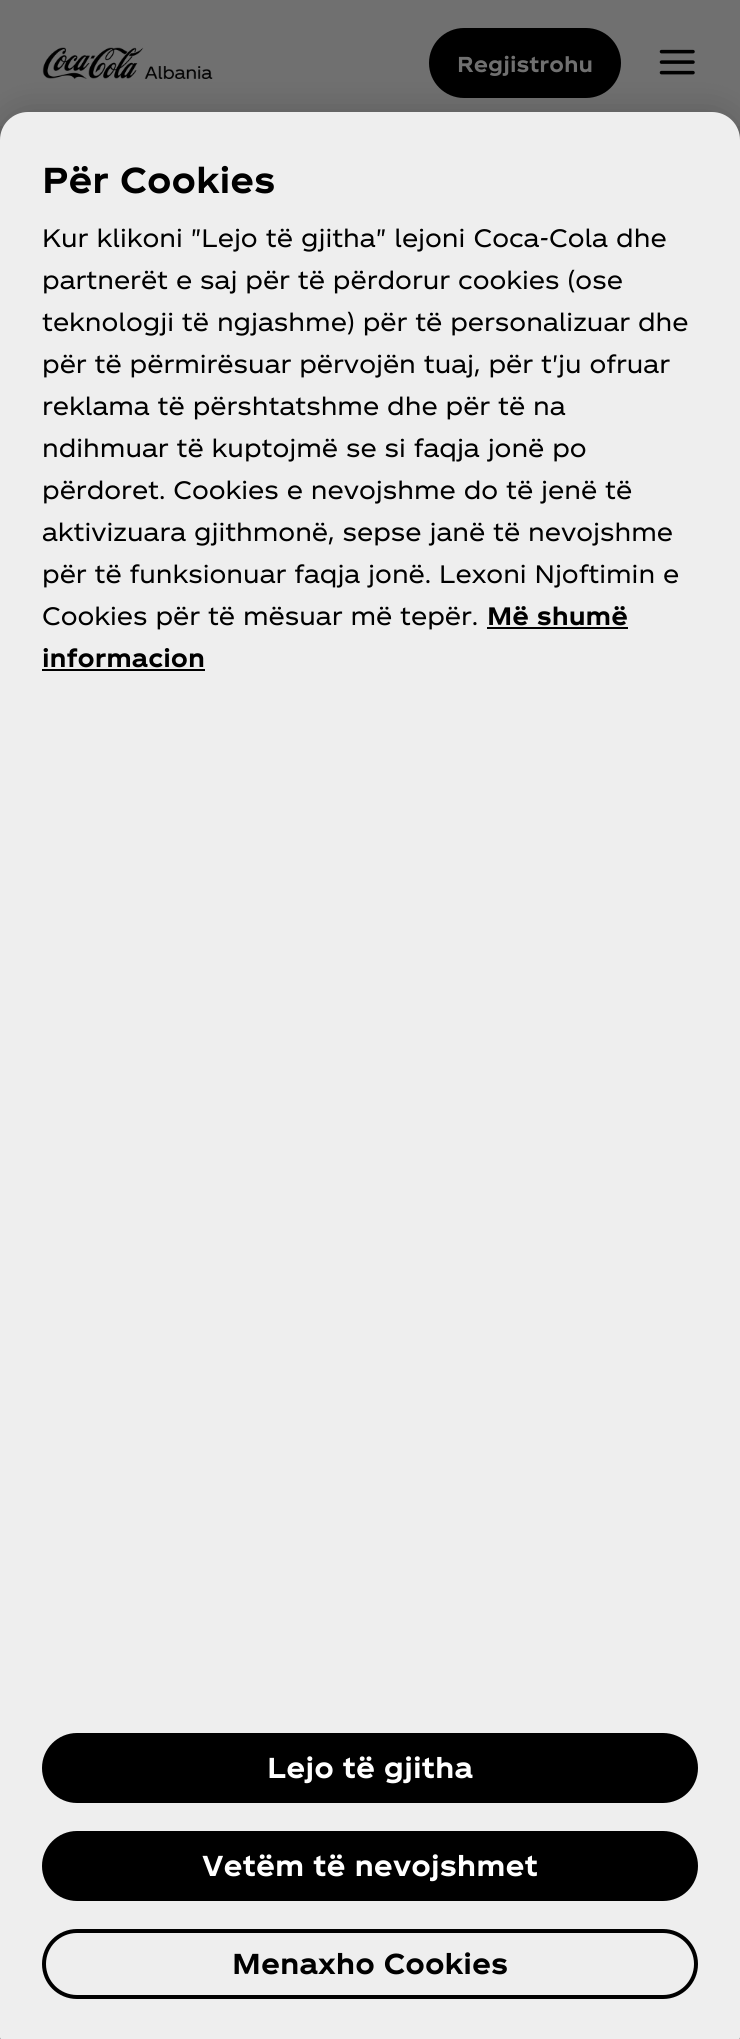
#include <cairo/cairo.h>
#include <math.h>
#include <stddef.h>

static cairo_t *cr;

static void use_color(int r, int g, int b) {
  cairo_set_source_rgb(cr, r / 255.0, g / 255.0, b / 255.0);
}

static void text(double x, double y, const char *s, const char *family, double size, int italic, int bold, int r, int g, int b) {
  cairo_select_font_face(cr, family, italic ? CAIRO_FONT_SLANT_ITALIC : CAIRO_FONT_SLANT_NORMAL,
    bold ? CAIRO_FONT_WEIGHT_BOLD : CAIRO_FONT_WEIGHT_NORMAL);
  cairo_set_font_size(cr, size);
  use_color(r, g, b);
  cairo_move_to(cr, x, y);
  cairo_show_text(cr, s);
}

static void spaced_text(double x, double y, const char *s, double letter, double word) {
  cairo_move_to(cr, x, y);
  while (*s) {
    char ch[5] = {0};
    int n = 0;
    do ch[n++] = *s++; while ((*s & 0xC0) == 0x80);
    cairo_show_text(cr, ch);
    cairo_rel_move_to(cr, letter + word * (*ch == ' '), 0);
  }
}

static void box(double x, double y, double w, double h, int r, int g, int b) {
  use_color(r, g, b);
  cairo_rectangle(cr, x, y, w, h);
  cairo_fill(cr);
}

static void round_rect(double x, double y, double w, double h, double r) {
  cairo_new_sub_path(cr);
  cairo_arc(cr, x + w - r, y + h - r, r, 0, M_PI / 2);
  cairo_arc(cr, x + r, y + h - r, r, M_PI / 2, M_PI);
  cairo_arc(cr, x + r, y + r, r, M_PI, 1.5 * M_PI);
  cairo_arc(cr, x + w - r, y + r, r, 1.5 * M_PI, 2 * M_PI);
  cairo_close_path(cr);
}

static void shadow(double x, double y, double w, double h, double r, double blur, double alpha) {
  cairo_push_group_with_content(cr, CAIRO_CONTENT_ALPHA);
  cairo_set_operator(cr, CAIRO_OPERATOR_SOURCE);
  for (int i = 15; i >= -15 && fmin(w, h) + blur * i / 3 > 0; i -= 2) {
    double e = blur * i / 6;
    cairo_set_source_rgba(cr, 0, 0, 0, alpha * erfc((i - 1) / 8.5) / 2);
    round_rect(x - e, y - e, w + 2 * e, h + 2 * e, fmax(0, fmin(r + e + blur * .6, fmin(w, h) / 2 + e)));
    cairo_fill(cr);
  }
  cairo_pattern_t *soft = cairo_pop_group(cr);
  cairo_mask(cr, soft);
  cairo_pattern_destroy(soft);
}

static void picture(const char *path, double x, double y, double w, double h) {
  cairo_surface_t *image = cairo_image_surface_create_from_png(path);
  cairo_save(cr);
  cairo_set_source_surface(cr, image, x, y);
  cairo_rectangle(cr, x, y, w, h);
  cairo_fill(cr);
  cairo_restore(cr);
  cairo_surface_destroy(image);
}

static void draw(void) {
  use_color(105, 105, 105);
  cairo_paint(cr);
  box(0, 0, 740, 126, 112, 112, 112);
  picture("img_01.png", 42, 47, 171, 32);
  use_color(0, 0, 0);
  round_rect(429, 28, 192, 70, 35);
  cairo_fill(cr);
  picture("img_02.png", 659, 49, 36, 26);
  box(0, 2037, 1, 2, 112, 112, 112);
  box(739, 2037, 1, 2, 112, 112, 112);
  use_color(0, 0, 0);
  shadow(0, 112, 740, 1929, 28, 16, 0.2);
  use_color(238, 238, 238);
  cairo_new_path(cr);
  cairo_move_to(cr, 28, 112);
  cairo_line_to(cr, 712, 112);
  cairo_curve_to(cr, 727.5, 112, 740, 124.5, 740, 140);
  cairo_line_to(cr, 740, 2037);
  cairo_curve_to(cr, 740, 2039, 738, 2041, 736, 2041);
  cairo_line_to(cr, 4, 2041);
  cairo_curve_to(cr, 2, 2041, 0, 2039, 0, 2037);
  cairo_line_to(cr, 0, 140);
  cairo_curve_to(cr, 0, 124.5, 12.5, 112, 28, 112);
  cairo_close_path(cr);
  cairo_fill(cr);
  box(487, 627, 141, 2, 0, 0, 0);
  box(42, 669, 163, 2, 0, 0, 0);
  round_rect(42, 1733, 656, 70, 35);
  cairo_fill(cr);
  round_rect(42, 1831, 656, 70, 35);
  cairo_fill(cr);
  round_rect(44, 1931, 652, 66, 33);
  cairo_set_line_width(cr, 4);
  cairo_stroke(cr);
  text(457, 72, "Regjistrohu", "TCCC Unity", 21, 0, 1, 112, 112, 112);
  text(42, 193, "Për Cookies", "TCCC Unity", 35, 0, 1, 0, 0, 0);
  cairo_select_font_face(cr, "TCCC Unity", CAIRO_FONT_SLANT_NORMAL, CAIRO_FONT_WEIGHT_NORMAL);
  cairo_set_font_size(cr, 24.5);
  spaced_text(42, 247, "Kur klikoni \"Lejo të gjitha\" lejoni Coca-Cola dhe", 0, 0.25);
  text(42, 289, "partnerët e saj për të përdorur cookies (ose", "TCCC Unity", 24.5, 0, 0, 0, 0, 0);
  text(42, 331, "teknologji të ngjashme) për të personalizuar dhe", "TCCC Unity", 24.5, 0, 0, 0, 0, 0);
  text(42, 373, "për të përmirësuar përvojën tuaj, për t'ju ofruar", "TCCC Unity", 24.5, 0, 0, 0, 0, 0);
  text(42, 415, "reklama të përshtatshme dhe për të na", "TCCC Unity", 24.5, 0, 0, 0, 0, 0);
  text(42, 457, "ndihmuar të kuptojmë se si faqja jonë po", "TCCC Unity", 24.5, 0, 0, 0, 0, 0);
  text(42, 499, "përdoret. Cookies e nevojshme do të jenë të", "TCCC Unity", 24.5, 0, 0, 0, 0, 0);
  text(42, 541, "aktivizuara gjithmonë, sepse janë të nevojshme", "TCCC Unity", 24.5, 0, 0, 0, 0, 0);
  text(42, 583, "për të funksionuar faqja jonë. Lexoni Njoftimin e", "TCCC Unity", 24.5, 0, 0, 0, 0, 0);
  text(42, 625, "Cookies për të mësuar më tepër.", "TCCC Unity", 24.5, 0, 0, 0, 0, 0);
  text(487, 625, "Më shumë", "TCCC Unity", 24.5, 0, 1, 0, 0, 0);
  text(42, 667, "informacion", "TCCC Unity", 24.5, 0, 1, 0, 0, 0);
  text(267, 1778, "Lejo të gjitha", "TCCC Unity", 28, 0, 1, 255, 255, 255);
  text(202, 1876, "Vetëm të nevojshmet", "TCCC Unity", 28, 0, 1, 255, 255, 255);
  text(232, 1974, "Menaxho Cookies", "TCCC Unity", 28, 0, 1, 0, 0, 0);
}

int main(void) {
  cairo_surface_t *surface = cairo_image_surface_create(CAIRO_FORMAT_RGB24, 740, 2039);
  cr = cairo_create(surface);
  cairo_font_options_t *options = cairo_font_options_create();
  cairo_font_options_set_hint_metrics(options, CAIRO_HINT_METRICS_OFF);
  cairo_font_options_set_hint_style(options, CAIRO_HINT_STYLE_NONE);
  cairo_set_font_options(cr, options);
  cairo_set_miter_limit(cr, 4);
  draw();
  cairo_surface_write_to_png(surface, "out.png");
  cairo_font_options_destroy(options);
  cairo_destroy(cr);
  cairo_surface_destroy(surface);
  return 0;
}
